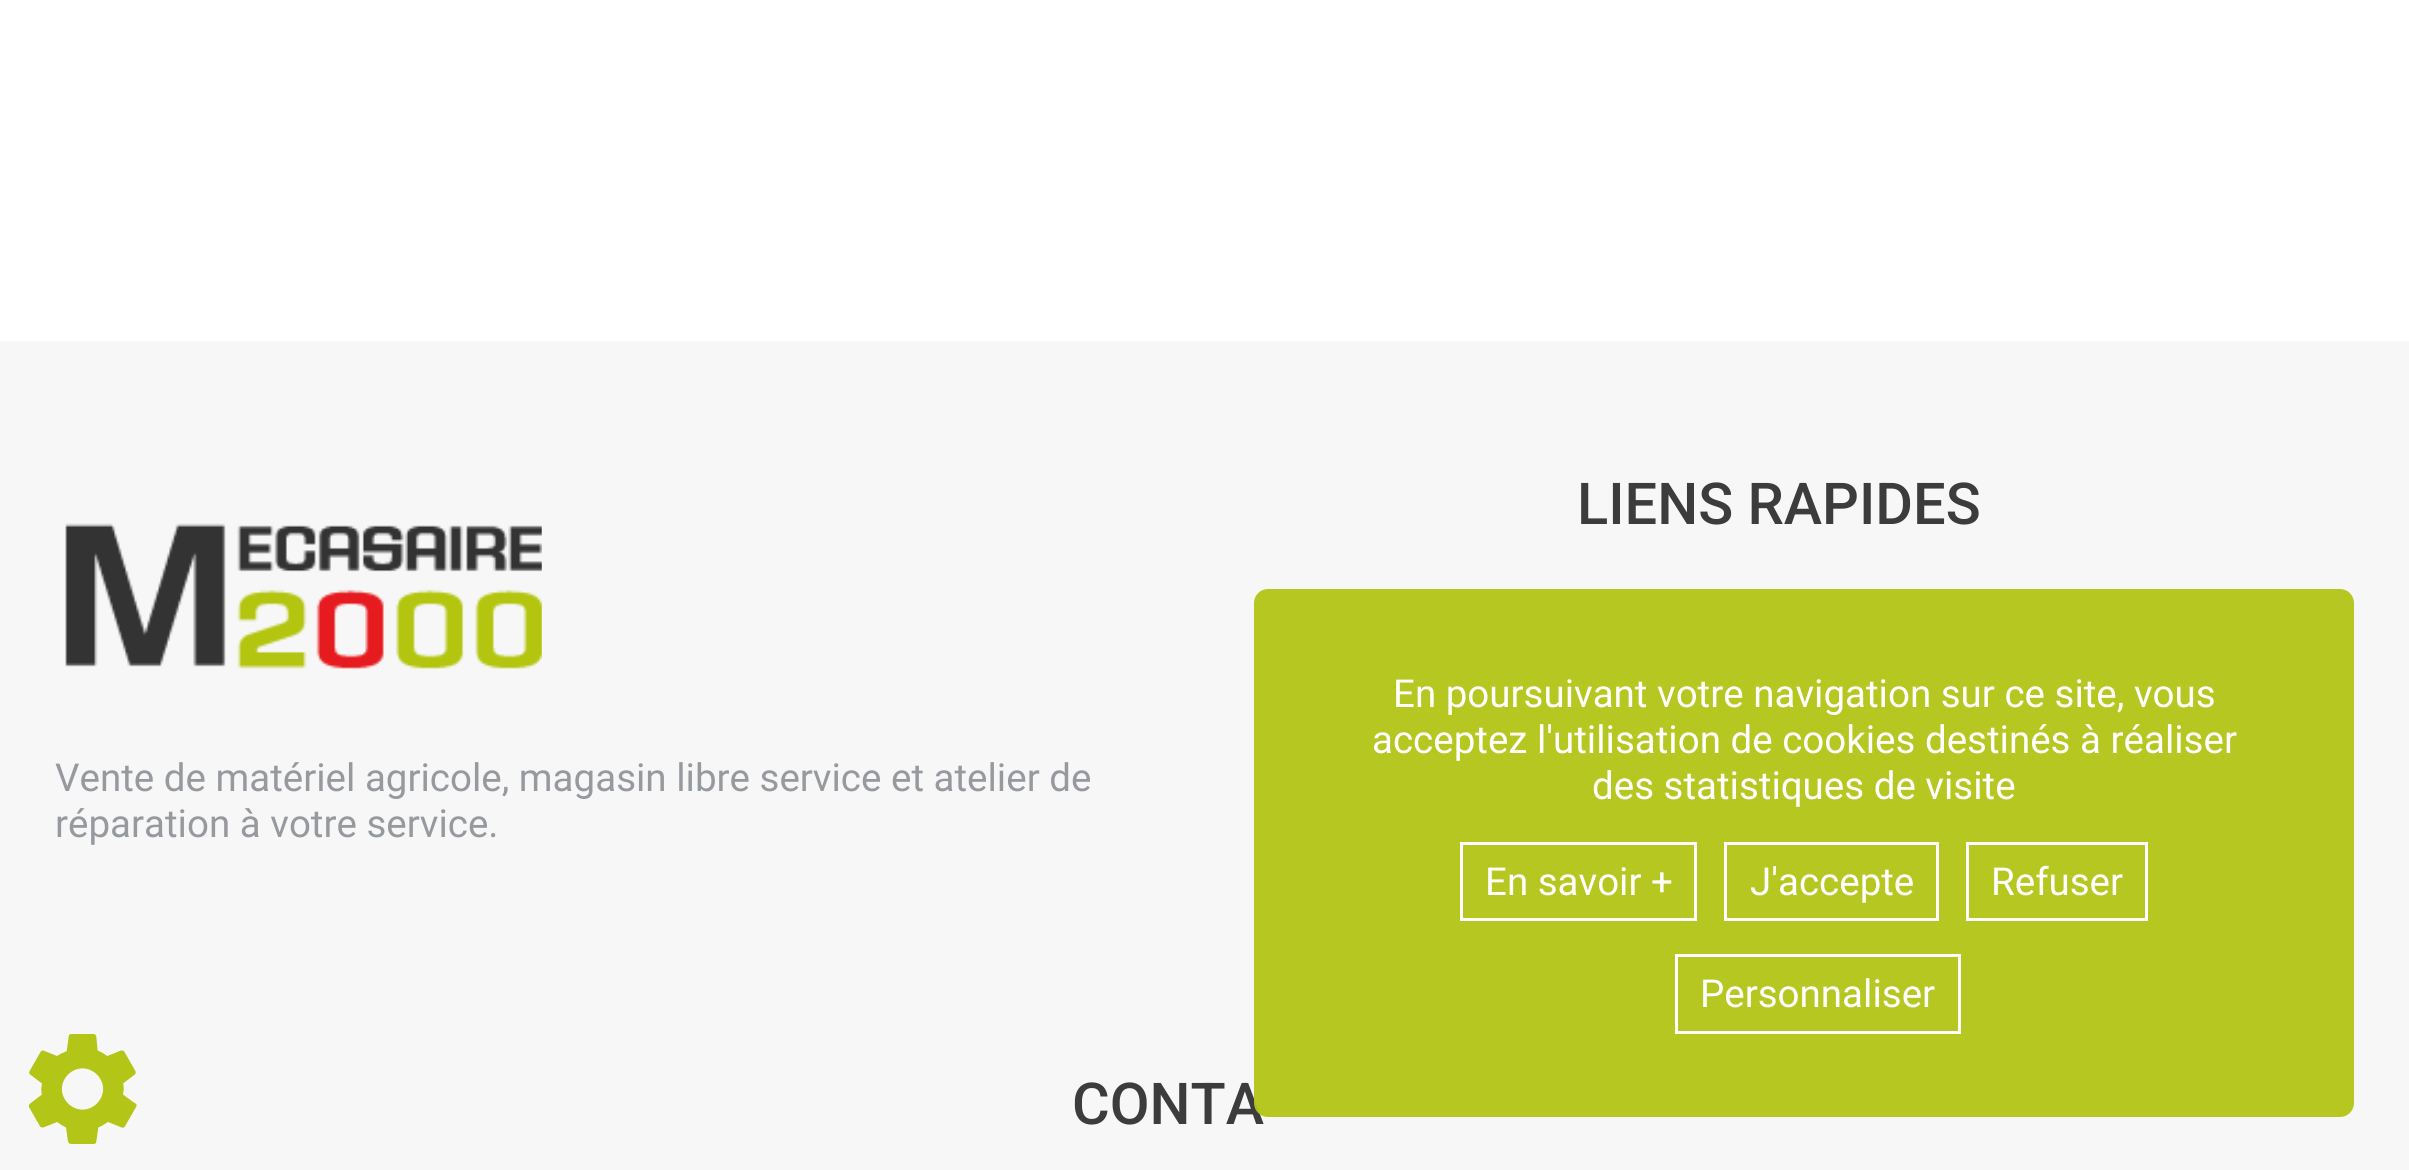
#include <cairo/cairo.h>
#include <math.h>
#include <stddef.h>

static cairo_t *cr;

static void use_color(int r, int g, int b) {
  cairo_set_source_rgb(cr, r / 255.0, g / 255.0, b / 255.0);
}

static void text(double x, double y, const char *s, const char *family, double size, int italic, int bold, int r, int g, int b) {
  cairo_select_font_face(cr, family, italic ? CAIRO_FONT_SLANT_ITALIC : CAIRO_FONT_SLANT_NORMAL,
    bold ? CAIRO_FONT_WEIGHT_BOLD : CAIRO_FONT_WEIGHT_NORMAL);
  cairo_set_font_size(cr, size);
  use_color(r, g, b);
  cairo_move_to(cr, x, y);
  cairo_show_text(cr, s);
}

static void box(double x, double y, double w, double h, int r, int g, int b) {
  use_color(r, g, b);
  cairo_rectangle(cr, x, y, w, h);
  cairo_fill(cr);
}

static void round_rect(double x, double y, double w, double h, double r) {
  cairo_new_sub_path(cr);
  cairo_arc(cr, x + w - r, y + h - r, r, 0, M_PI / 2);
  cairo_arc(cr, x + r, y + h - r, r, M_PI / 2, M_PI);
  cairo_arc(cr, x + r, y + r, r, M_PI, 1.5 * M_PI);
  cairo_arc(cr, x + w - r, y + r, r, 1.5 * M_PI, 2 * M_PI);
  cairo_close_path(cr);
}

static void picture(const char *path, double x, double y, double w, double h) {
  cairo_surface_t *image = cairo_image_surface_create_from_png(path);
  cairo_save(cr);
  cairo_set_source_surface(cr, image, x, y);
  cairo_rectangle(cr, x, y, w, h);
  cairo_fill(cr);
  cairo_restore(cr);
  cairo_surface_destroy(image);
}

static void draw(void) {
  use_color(255, 255, 255);
  cairo_paint(cr);
  box(0, 341, 2409, 829, 247, 247, 247);
  picture("img_01.png", 65, 523, 477, 146);
  picture("img_02.png", 28, 1034, 109, 110);
  text(1577, 524, "LIENS RAPIDES", "Roboto Medium", 57.75, 0, 0, 60, 60, 60);
  text(55, 791, "Vente de matériel agricole, magasin libre service et atelier de", "Roboto", 38.5, 0, 0, 150, 154, 158);
  text(55, 837, "réparation à votre service.", "Roboto", 38.5, 0, 0, 150, 154, 158);
  text(1072, 1124, "CONTA", "Roboto Medium", 57.75, 0, 0, 60, 60, 60);
  cairo_set_source_rgba(cr, 0.702, 0.773, 0.09, 0.95);
  round_rect(1254, 589, 1100, 528, 14);
  cairo_fill(cr);
  text(1393, 707, "En poursuivant votre navigation sur ce site, vous", "Roboto", 38.5, 0, 0, 255, 255, 255);
  text(1372, 753, "acceptez l'utilisation de cookies destinés à réaliser", "Roboto", 38.5, 0, 0, 255, 255, 255);
  text(1592, 799, "des statistiques de visite", "Roboto", 38.5, 0, 0, 255, 255, 255);
  cairo_rectangle(cr, 1461.5, 843.5, 234, 76);
  cairo_set_line_width(cr, 3);
  cairo_stroke(cr);
  text(1485, 895, "En savoir +", "Roboto", 38.5, 0, 0, 255, 255, 255);
  cairo_rectangle(cr, 1725.5, 843.5, 212, 76);
  cairo_stroke(cr);
  text(1750, 895, "J'accepte", "Roboto", 38.5, 0, 0, 255, 255, 255);
  cairo_rectangle(cr, 1967.5, 843.5, 179, 76);
  cairo_stroke(cr);
  text(1991, 895, "Refuser", "Roboto", 38.5, 0, 0, 255, 255, 255);
  cairo_rectangle(cr, 1676.5, 955.5, 283, 77);
  cairo_stroke(cr);
  text(1700, 1007, "Personnaliser", "Roboto", 38.5, 0, 0, 255, 255, 255);
}

int main(void) {
  cairo_surface_t *surface = cairo_image_surface_create(CAIRO_FORMAT_RGB24, 2409, 1170);
  cr = cairo_create(surface);
  cairo_font_options_t *options = cairo_font_options_create();
  cairo_font_options_set_hint_metrics(options, CAIRO_HINT_METRICS_OFF);
  cairo_font_options_set_hint_style(options, CAIRO_HINT_STYLE_NONE);
  cairo_set_font_options(cr, options);
  cairo_set_miter_limit(cr, 4);
  draw();
  cairo_surface_write_to_png(surface, "out.png");
  cairo_font_options_destroy(options);
  cairo_destroy(cr);
  cairo_surface_destroy(surface);
  return 0;
}
